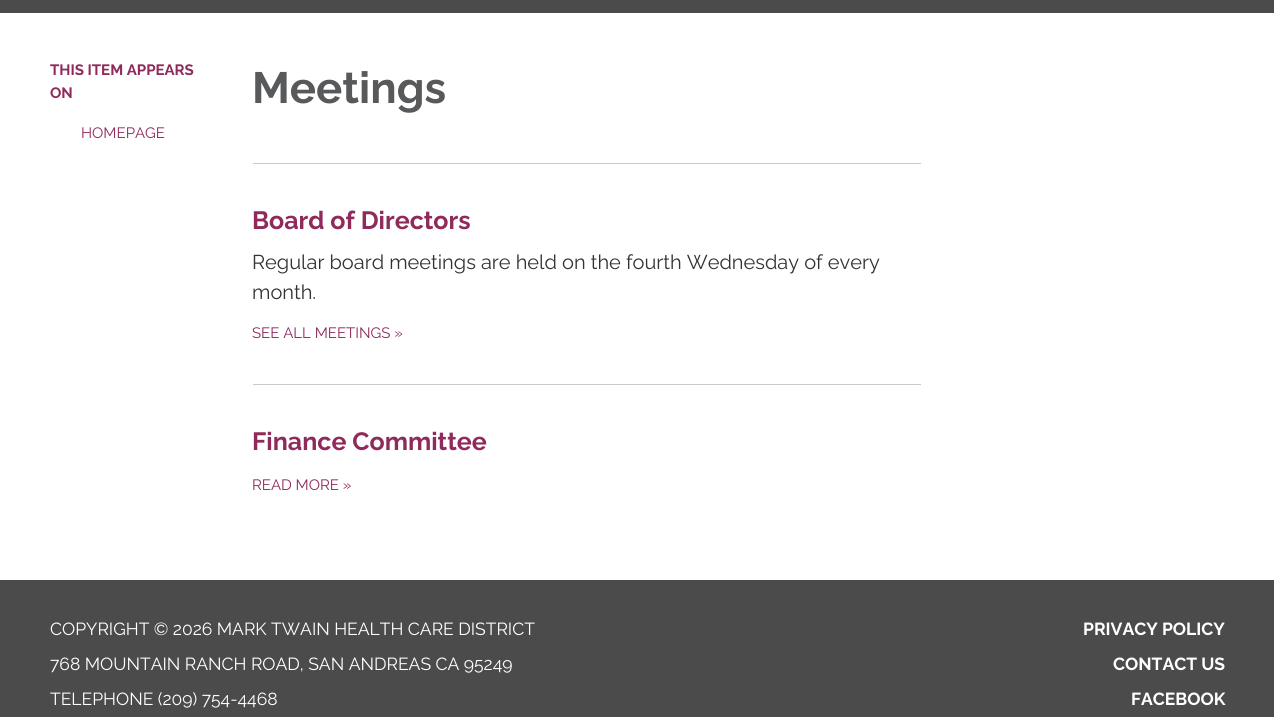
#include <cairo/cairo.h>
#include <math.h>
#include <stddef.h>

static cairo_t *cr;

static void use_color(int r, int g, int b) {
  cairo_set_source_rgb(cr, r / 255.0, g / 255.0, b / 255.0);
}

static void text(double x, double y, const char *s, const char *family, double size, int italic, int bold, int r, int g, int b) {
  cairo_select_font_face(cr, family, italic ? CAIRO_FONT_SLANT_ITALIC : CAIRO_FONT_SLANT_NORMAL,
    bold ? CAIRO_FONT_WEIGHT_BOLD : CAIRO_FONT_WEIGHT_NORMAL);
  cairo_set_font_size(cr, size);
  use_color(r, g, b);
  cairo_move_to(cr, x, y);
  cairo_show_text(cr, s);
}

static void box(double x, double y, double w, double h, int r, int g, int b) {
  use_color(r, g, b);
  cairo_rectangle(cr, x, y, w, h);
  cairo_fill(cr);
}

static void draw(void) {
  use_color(75, 75, 75);
  cairo_paint(cr);
  box(0, 13, 1274, 567, 255, 255, 255);
  box(253, 163, 668, 1, 200, 201, 203);
  box(253, 384, 668, 1, 200, 201, 203);
  text(50, 75, "THIS ITEM APPEARS", "Raleway", 15, 0, 1, 143, 42, 91);
  text(50, 98, "ON", "Raleway", 15, 0, 1, 143, 42, 91);
  text(81, 138, "HOMEPAGE", "Raleway", 15, 0, 0, 143, 42, 91);
  text(252, 103, "Meetings", "Raleway", 43.75, 0, 1, 88, 89, 91);
  text(252, 229, "Board of Directors", "Raleway", 25, 0, 1, 143, 42, 91);
  text(252, 269, "Regular board meetings are held on the fourth Wednesday of every", "Raleway", 20, 0, 0, 51, 51, 51);
  text(252, 299, "month.", "Raleway", 20, 0, 0, 51, 51, 51);
  text(252, 338, "SEE ALL MEETINGS »", "Raleway", 15, 0, 0, 143, 42, 91);
  text(252, 450, "Finance Committee", "Raleway", 25, 0, 1, 143, 42, 91);
  text(252, 490, "READ MORE »", "Raleway", 15, 0, 0, 143, 42, 91);
  text(50, 635, "COPYRIGHT © 2026 MARK TWAIN HEALTH CARE DISTRICT", "Raleway", 17.5, 0, 0, 255, 255, 255);
  text(50, 670, "768 MOUNTAIN RANCH ROAD, SAN ANDREAS CA 95249", "Raleway", 17.5, 0, 0, 255, 255, 255);
  text(50, 705, "TELEPHONE (209) 754-4468", "Raleway", 17.5, 0, 0, 255, 255, 255);
  text(1083, 635, "PRIVACY POLICY", "Raleway", 17.5, 0, 1, 255, 255, 255);
  text(1113, 670, "CONTACT US", "Raleway", 17.5, 0, 1, 255, 255, 255);
  text(1131, 705, "FACEBOOK", "Raleway", 17.5, 0, 1, 255, 255, 255);
}

int main(void) {
  cairo_surface_t *surface = cairo_image_surface_create(CAIRO_FORMAT_RGB24, 1274, 717);
  cr = cairo_create(surface);
  cairo_font_options_t *options = cairo_font_options_create();
  cairo_font_options_set_hint_metrics(options, CAIRO_HINT_METRICS_OFF);
  cairo_font_options_set_hint_style(options, CAIRO_HINT_STYLE_NONE);
  cairo_set_font_options(cr, options);
  cairo_set_miter_limit(cr, 4);
  draw();
  cairo_surface_write_to_png(surface, "out.png");
  cairo_font_options_destroy(options);
  cairo_destroy(cr);
  cairo_surface_destroy(surface);
  return 0;
}
